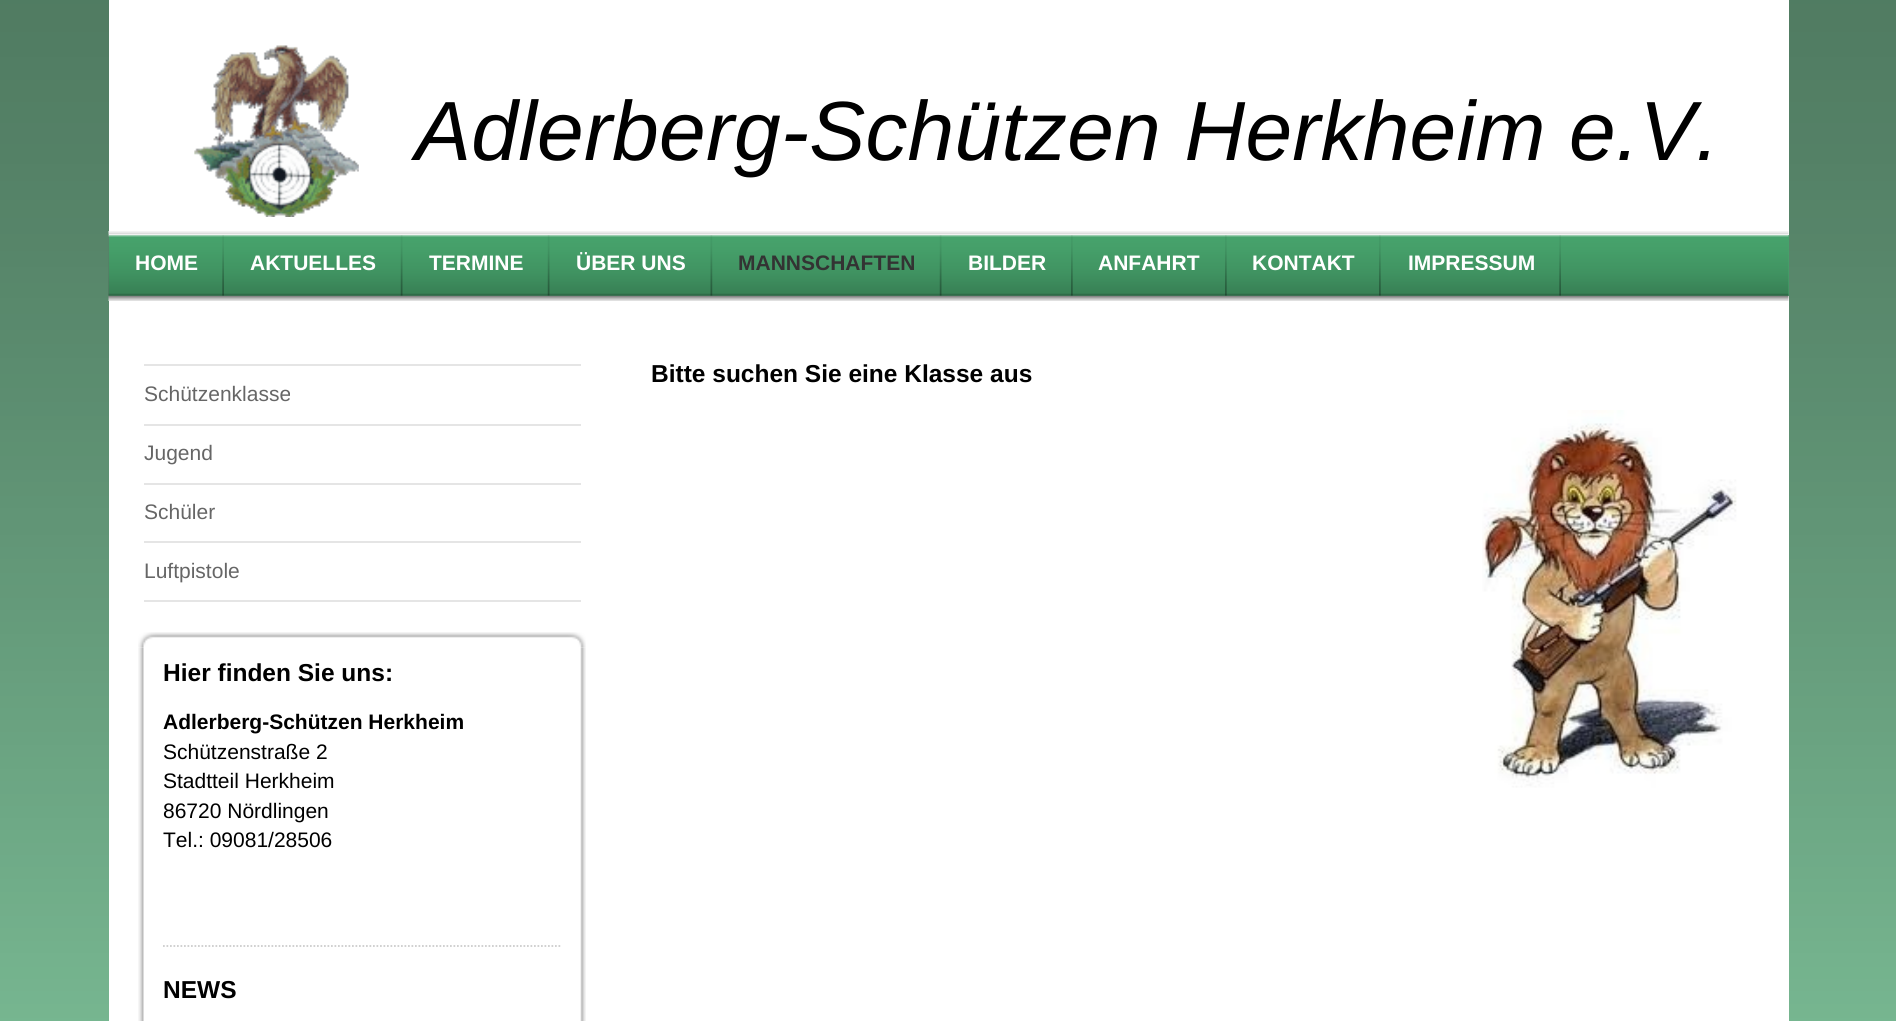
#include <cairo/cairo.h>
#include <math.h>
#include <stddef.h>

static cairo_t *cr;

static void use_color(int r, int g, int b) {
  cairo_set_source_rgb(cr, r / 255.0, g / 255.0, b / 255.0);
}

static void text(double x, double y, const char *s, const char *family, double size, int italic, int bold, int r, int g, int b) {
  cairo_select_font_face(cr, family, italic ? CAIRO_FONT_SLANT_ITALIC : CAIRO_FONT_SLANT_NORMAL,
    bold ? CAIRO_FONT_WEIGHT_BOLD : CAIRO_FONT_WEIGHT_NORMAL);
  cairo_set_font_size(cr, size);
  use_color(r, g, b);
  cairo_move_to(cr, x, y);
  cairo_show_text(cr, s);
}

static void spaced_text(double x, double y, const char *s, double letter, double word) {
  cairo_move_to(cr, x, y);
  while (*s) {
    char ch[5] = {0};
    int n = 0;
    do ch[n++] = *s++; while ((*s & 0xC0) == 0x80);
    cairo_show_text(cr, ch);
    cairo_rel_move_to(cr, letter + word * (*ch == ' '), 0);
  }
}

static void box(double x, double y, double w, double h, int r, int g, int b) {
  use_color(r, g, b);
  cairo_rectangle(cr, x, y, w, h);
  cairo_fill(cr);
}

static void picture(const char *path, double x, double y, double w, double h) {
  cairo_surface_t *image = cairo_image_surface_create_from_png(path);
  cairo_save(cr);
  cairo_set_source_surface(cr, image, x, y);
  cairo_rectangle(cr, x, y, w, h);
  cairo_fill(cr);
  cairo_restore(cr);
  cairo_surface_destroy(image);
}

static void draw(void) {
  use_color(134, 206, 163);
  cairo_paint(cr);
  picture("img_01.png", 0, 0, 1896, 1021);
  box(109, 0, 1680, 1021, 255, 255, 255);
  picture("img_02.png", 194, 45, 165, 172);
  picture("img_03.png", 108, 231, 1681, 4);
  box(109, 235, 1680, 61, 71, 163, 108);
  picture("img_09.png", 108, 295, 1681, 6);
  picture("img_04.png", 108, 234, 1681, 62);
  picture("img_05.png", 222, 235, 2, 61);
  picture("img_06.png", 400, 235, 3, 61);
  picture("img_06.png", 547, 235, 3, 61);
  picture("img_07.png", 710, 235, 3, 61);
  picture("img_06.png", 939, 235, 3, 61);
  picture("img_08.png", 1071, 235, 2, 61);
  picture("img_08.png", 1225, 235, 2, 61);
  picture("img_08.png", 1379, 235, 2, 61);
  picture("img_05.png", 1559, 235, 2, 61);
  picture("img_10.png", 1482, 410, 255, 378);
  box(144, 364, 437, 2, 229, 229, 229);
  box(144, 424, 437, 2, 229, 229, 229);
  box(144, 483, 437, 2, 229, 229, 229);
  box(144, 541, 437, 2, 229, 229, 229);
  box(144, 600, 437, 2, 229, 229, 229);
  picture("img_11.png", 138, 632, 448, 16);
  picture("img_12.png", 138, 647, 448, 374);
  cairo_new_path(cr);
  cairo_move_to(cr, 163, 946);
  cairo_line_to(cr, 562, 946);
  use_color(204, 204, 204);
  cairo_set_line_width(cr, 1.8);
  cairo_set_dash(cr, (double[]){1.75, 1.75}, 2, 0);
  cairo_stroke(cr);
  cairo_select_font_face(cr, "Liberation Sans", CAIRO_FONT_SLANT_ITALIC, CAIRO_FONT_WEIGHT_NORMAL);
  cairo_set_font_size(cr, 84);
  use_color(0, 0, 0);
  spaced_text(415, 160, "Adlerberg-Schützen Herkheim e.V.", 0.2, 0);
  text(135, 270, "HOME", "Liberation Sans", 21, 0, 1, 255, 255, 255);
  text(250, 270, "AKTUELLES", "Liberation Sans", 21, 0, 1, 255, 255, 255);
  text(429, 270, "TERMINE", "Liberation Sans", 21, 0, 1, 255, 255, 255);
  text(576, 270, "ÜBER UNS", "Liberation Sans", 21, 0, 1, 255, 255, 255);
  text(738, 270, "MANNSCHAFTEN", "Liberation Sans", 21, 0, 1, 51, 51, 51);
  text(968, 270, "BILDER", "Liberation Sans", 21, 0, 1, 255, 255, 255);
  text(1098, 270, "ANFAHRT", "Liberation Sans", 21, 0, 1, 255, 255, 255);
  text(1252, 270, "KONTAKT", "Liberation Sans", 21, 0, 1, 255, 255, 255);
  text(1408, 270, "IMPRESSUM", "Liberation Sans", 21, 0, 1, 255, 255, 255);
  text(651, 382, "Bitte suchen Sie eine Klasse aus", "Liberation Sans", 24.5, 0, 1, 0, 0, 0);
  text(144, 401, "Schützenklasse", "Liberation Sans", 21, 0, 0, 102, 102, 102);
  text(144, 460, "Jugend", "Liberation Sans", 21, 0, 0, 102, 102, 102);
  text(144, 519, "Schüler", "Liberation Sans", 21, 0, 0, 102, 102, 102);
  text(144, 578, "Luftpistole", "Liberation Sans", 21, 0, 0, 102, 102, 102);
  text(163, 681, "Hier finden Sie uns:", "Liberation Sans", 24.5, 0, 1, 0, 0, 0);
  text(163, 729, "Adlerberg-Schützen Herkheim", "Liberation Sans", 21, 0, 1, 0, 0, 0);
  text(163, 759, "Schützenstraße 2", "Liberation Sans", 21, 0, 0, 0, 0, 0);
  text(163, 788, "Stadtteil Herkheim", "Liberation Sans", 21, 0, 0, 0, 0, 0);
  text(163, 818, "86720 Nördlingen", "Liberation Sans", 21, 0, 0, 0, 0, 0);
  text(163, 847, "Tel.: 09081/28506", "Liberation Sans", 21, 0, 0, 0, 0, 0);
  text(163, 998, "NEWS", "Liberation Sans", 24.5, 0, 1, 0, 0, 0);
}

int main(void) {
  cairo_surface_t *surface = cairo_image_surface_create(CAIRO_FORMAT_RGB24, 1896, 1021);
  cr = cairo_create(surface);
  cairo_font_options_t *options = cairo_font_options_create();
  cairo_font_options_set_hint_metrics(options, CAIRO_HINT_METRICS_OFF);
  cairo_font_options_set_hint_style(options, CAIRO_HINT_STYLE_NONE);
  cairo_set_font_options(cr, options);
  cairo_set_miter_limit(cr, 4);
  draw();
  cairo_surface_write_to_png(surface, "out.png");
  cairo_font_options_destroy(options);
  cairo_destroy(cr);
  cairo_surface_destroy(surface);
  return 0;
}
